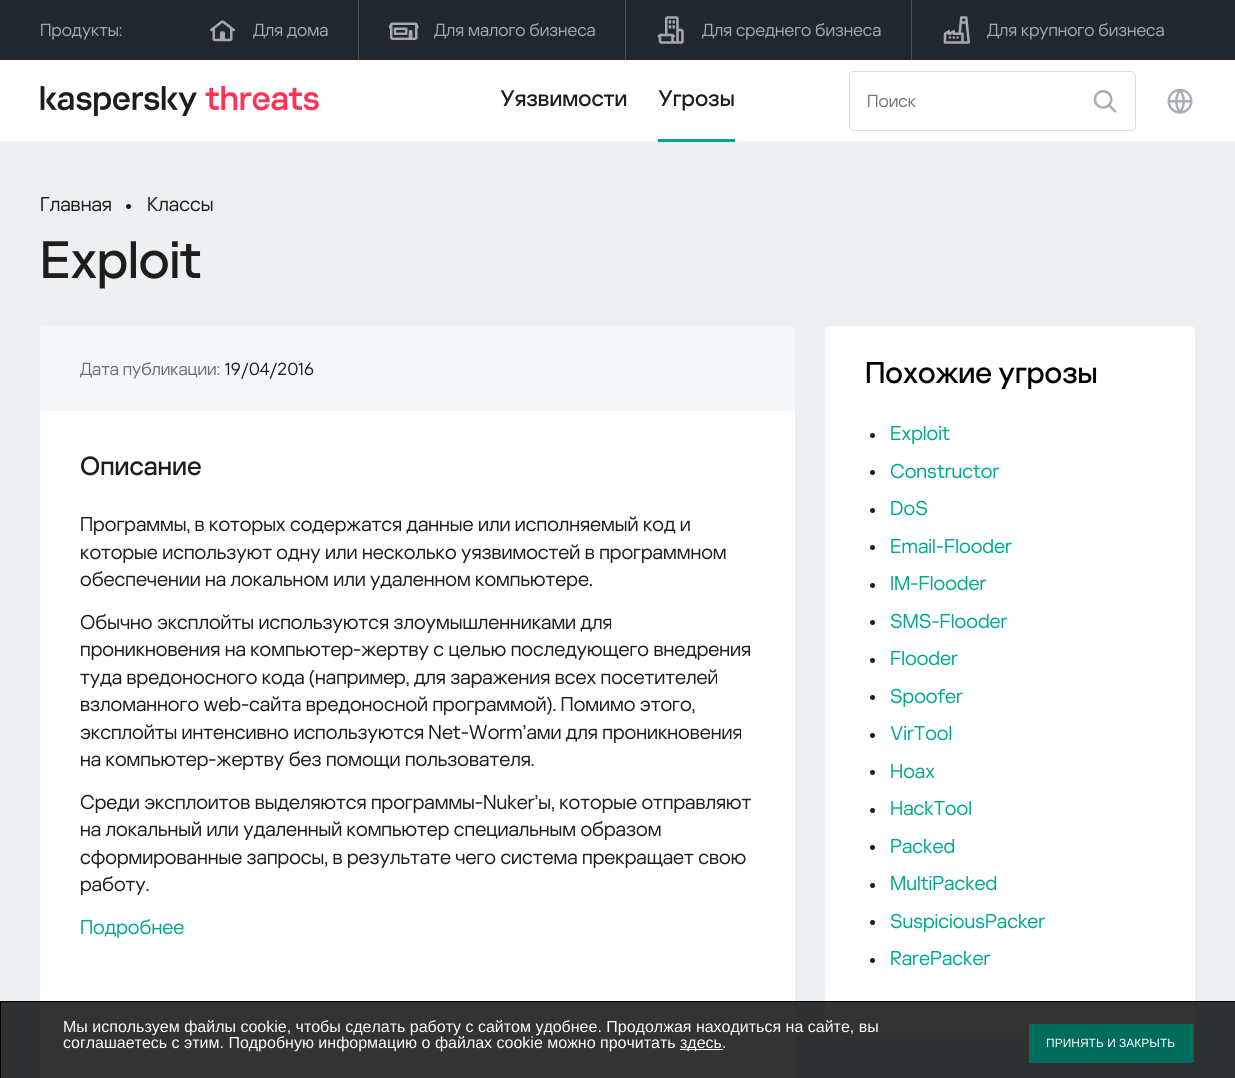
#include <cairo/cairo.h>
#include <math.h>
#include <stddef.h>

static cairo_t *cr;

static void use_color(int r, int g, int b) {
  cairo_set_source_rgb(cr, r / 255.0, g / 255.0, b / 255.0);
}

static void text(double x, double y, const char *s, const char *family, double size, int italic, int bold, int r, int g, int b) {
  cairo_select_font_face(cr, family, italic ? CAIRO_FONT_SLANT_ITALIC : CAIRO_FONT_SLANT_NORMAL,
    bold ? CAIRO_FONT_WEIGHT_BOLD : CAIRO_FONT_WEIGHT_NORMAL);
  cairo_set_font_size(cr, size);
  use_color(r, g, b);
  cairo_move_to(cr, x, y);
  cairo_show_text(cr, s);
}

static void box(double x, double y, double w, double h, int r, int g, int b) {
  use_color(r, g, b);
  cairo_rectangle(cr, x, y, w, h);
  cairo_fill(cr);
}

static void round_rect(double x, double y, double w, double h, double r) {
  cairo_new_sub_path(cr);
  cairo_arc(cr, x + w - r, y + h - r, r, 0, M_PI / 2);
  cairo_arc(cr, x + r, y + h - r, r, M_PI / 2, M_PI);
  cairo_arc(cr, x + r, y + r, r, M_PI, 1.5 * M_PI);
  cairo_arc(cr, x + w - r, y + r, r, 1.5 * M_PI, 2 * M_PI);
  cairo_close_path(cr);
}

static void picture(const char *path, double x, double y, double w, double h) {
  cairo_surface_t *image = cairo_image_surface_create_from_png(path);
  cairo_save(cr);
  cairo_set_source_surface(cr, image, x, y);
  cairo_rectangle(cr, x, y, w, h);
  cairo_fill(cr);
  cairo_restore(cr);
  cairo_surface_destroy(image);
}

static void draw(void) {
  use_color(237, 240, 243);
  cairo_paint(cr);
  box(0, 0, 1235, 60, 33, 39, 47);
  box(358, 0, 1, 60, 77, 82, 89);
  picture("img_01.png", 210, 20, 25, 22);
  box(625, 0, 1, 60, 77, 82, 89);
  picture("img_02.png", 389, 22, 30, 18);
  box(911, 0, 1, 60, 77, 82, 89);
  picture("img_03.png", 657, 16, 27, 28);
  picture("img_04.png", 943, 16, 27, 28);
  box(0, 60, 1235, 81, 255, 255, 255);
  picture("img_05.png", 40, 86, 279, 30);
  box(658, 139, 77, 3, 0, 168, 142);
  round_rect(849.5, 71.5, 286, 59, 4.5);
  use_color(217, 221, 226);
  cairo_set_line_width(cr, 1);
  cairo_stroke(cr);
  picture("img_06.png", 1093, 90, 24, 23);
  picture("img_07.png", 1167, 88, 26, 26);
  use_color(29, 29, 27);
  cairo_arc(cr, 128.5, 206.5, 2.5, 0, 2 * M_PI);
  cairo_fill(cr);
  use_color(255, 255, 255);
  round_rect(40, 326, 755, 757, 5);
  cairo_fill(cr);
  use_color(244, 247, 250);
  cairo_new_path(cr);
  cairo_move_to(cr, 45, 326);
  cairo_line_to(cr, 790, 326);
  cairo_curve_to(cr, 793, 326, 795, 328, 795, 331);
  cairo_line_to(cr, 795, 411);
  cairo_line_to(cr, 40, 411);
  cairo_line_to(cr, 40, 331);
  cairo_curve_to(cr, 40, 328, 42, 326, 45, 326);
  cairo_close_path(cr);
  cairo_fill(cr);
  use_color(255, 255, 255);
  round_rect(825, 326, 370, 707, 5);
  cairo_fill(cr);
  use_color(29, 29, 27);
  cairo_arc(cr, 872.5, 435.5, 2.5, 0, 2 * M_PI);
  cairo_fill(cr);
  cairo_arc(cr, 872.5, 472.5, 2.5, 0, 2 * M_PI);
  cairo_fill(cr);
  cairo_arc(cr, 872.5, 510.5, 2.5, 0, 2 * M_PI);
  cairo_fill(cr);
  cairo_arc(cr, 872.5, 547.5, 2.5, 0, 2 * M_PI);
  cairo_fill(cr);
  cairo_arc(cr, 872.5, 585.5, 2.5, 0, 2 * M_PI);
  cairo_fill(cr);
  cairo_arc(cr, 872.5, 622.5, 2.5, 0, 2 * M_PI);
  cairo_fill(cr);
  cairo_arc(cr, 872.5, 660.5, 2.5, 0, 2 * M_PI);
  cairo_fill(cr);
  cairo_arc(cr, 872.5, 697.5, 2.5, 0, 2 * M_PI);
  cairo_fill(cr);
  cairo_arc(cr, 872.5, 735.5, 2.5, 0, 2 * M_PI);
  cairo_fill(cr);
  cairo_arc(cr, 872.5, 772.5, 2.5, 0, 2 * M_PI);
  cairo_fill(cr);
  cairo_arc(cr, 872.5, 810.5, 2.5, 0, 2 * M_PI);
  cairo_fill(cr);
  cairo_arc(cr, 872.5, 847.5, 2.5, 0, 2 * M_PI);
  cairo_fill(cr);
  cairo_arc(cr, 872.5, 885.5, 2.5, 0, 2 * M_PI);
  cairo_fill(cr);
  cairo_arc(cr, 872.5, 922.5, 2.5, 0, 2 * M_PI);
  cairo_fill(cr);
  cairo_arc(cr, 872.5, 960.5, 2.5, 0, 2 * M_PI);
  cairo_fill(cr);
  cairo_set_source_rgba(cr, 0, 0, 0, 0.8);
  cairo_rectangle(cr, 0.5, 1001.5, 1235, 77);
  cairo_fill_preserve(cr);
  use_color(0, 0, 0);
  cairo_stroke(cr);
  box(680, 1049, 43, 1, 255, 255, 255);
  use_color(0, 109, 92);
  round_rect(1029, 1024, 165, 39, 1);
  cairo_fill(cr);
  text(40, 36, "Продукты:", "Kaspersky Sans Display", 17.5, 0, 0, 166, 169, 172);
  text(253, 36, "Для дома", "Kaspersky Sans Display", 17.5, 0, 0, 166, 169, 172);
  text(434, 36, "Для малого бизнеса", "Kaspersky Sans Display", 17.5, 0, 0, 166, 169, 172);
  text(702, 36, "Для среднего бизнеса", "Kaspersky Sans Display", 17.5, 0, 0, 166, 169, 172);
  text(987, 36, "Для крупного бизнеса", "Kaspersky Sans Display", 17.5, 0, 0, 166, 169, 172);
  text(500, 106, "Уязвимости", "Kaspersky Sans Display Medium", 22.5, 0, 0, 29, 29, 27);
  text(658, 106, "Угрозы", "Kaspersky Sans Display Medium", 22.5, 0, 0, 29, 29, 27);
  text(867, 107, "Поиск", "Kaspersky Sans Display", 17.5, 0, 0, 117, 117, 117);
  text(40, 211, "Главная", "Kaspersky Sans Display", 20, 0, 0, 29, 29, 27);
  text(147, 211, "Классы", "Kaspersky Sans Display", 20, 0, 0, 29, 29, 27);
  text(40, 278, "Exploit", "Kaspersky Sans Display Medium", 52.5, 0, 0, 29, 29, 27);
  text(80, 375, "Дата публикации:", "Kaspersky Sans Display", 17.5, 0, 0, 103, 111, 121);
  text(225, 375, "19/04/2016", "Kaspersky Sans Display", 17.5, 0, 0, 29, 29, 27);
  text(80, 475, "Описание", "Kaspersky Sans Display Medium", 26.25, 0, 0, 29, 29, 27);
  text(80, 531, "Программы, в которых содержатся данные или исполняемый код и", "Kaspersky Sans Display", 20, 0, 0, 29, 29, 27);
  text(80, 559, "которые используют одну или несколько уязвимостей в программном", "Kaspersky Sans Display", 20, 0, 0, 29, 29, 27);
  text(80, 586, "обеспечении на локальном или удаленном компьютере.", "Kaspersky Sans Display", 20, 0, 0, 29, 29, 27);
  text(80, 629, "Обычно эксплойты используются злоумышленниками для", "Kaspersky Sans Display", 20, 0, 0, 29, 29, 27);
  text(80, 656, "проникновения на компьютер-жертву с целью последующего внедрения", "Kaspersky Sans Display", 20, 0, 0, 29, 29, 27);
  text(80, 684, "туда вредоносного кода (например, для заражения всех посетителей", "Kaspersky Sans Display", 20, 0, 0, 29, 29, 27);
  text(80, 711, "взломанного web-сайта вредоносной программой). Помимо этого,", "Kaspersky Sans Display", 20, 0, 0, 29, 29, 27);
  text(80, 739, "эксплойты интенсивно используются Net-Worm’ами для проникновения", "Kaspersky Sans Display", 20, 0, 0, 29, 29, 27);
  text(80, 766, "на компьютер-жертву без помощи пользователя.", "Kaspersky Sans Display", 20, 0, 0, 29, 29, 27);
  text(80, 809, "Среди эксплоитов выделяются программы-Nuker’ы, которые отправляют", "Kaspersky Sans Display", 20, 0, 0, 29, 29, 27);
  text(80, 836, "на локальный или удаленный компьютер специальным образом", "Kaspersky Sans Display", 20, 0, 0, 29, 29, 27);
  text(80, 864, "сформированные запросы, в результате чего система прекращает свою", "Kaspersky Sans Display", 20, 0, 0, 29, 29, 27);
  text(80, 891, "работу.", "Kaspersky Sans Display", 20, 0, 0, 29, 29, 27);
  text(80, 934, "Подробнее", "Kaspersky Sans Display", 20, 0, 0, 0, 168, 142);
  text(865, 383, "Похожие угрозы", "Kaspersky Sans Display Medium", 30, 0, 0, 0, 0, 0);
  text(890, 440, "Exploit", "Kaspersky Sans Display", 20, 0, 0, 0, 168, 142);
  text(890, 478, "Constructor", "Kaspersky Sans Display", 20, 0, 0, 0, 168, 142);
  text(890, 515, "DoS", "Kaspersky Sans Display", 20, 0, 0, 0, 168, 142);
  text(890, 553, "Email-Flooder", "Kaspersky Sans Display", 20, 0, 0, 0, 168, 142);
  text(890, 590, "IM-Flooder", "Kaspersky Sans Display", 20, 0, 0, 0, 168, 142);
  text(890, 628, "SMS-Flooder", "Kaspersky Sans Display", 20, 0, 0, 0, 168, 142);
  text(890, 665, "Flooder", "Kaspersky Sans Display", 20, 0, 0, 0, 168, 142);
  text(890, 703, "Spoofer", "Kaspersky Sans Display", 20, 0, 0, 0, 168, 142);
  text(890, 740, "VirTool", "Kaspersky Sans Display", 20, 0, 0, 0, 168, 142);
  text(890, 778, "Hoax", "Kaspersky Sans Display", 20, 0, 0, 0, 168, 142);
  text(890, 815, "HackTool", "Kaspersky Sans Display", 20, 0, 0, 0, 168, 142);
  text(890, 853, "Packed", "Kaspersky Sans Display", 20, 0, 0, 0, 168, 142);
  text(890, 890, "MultiPacked", "Kaspersky Sans Display", 20, 0, 0, 0, 168, 142);
  text(890, 928, "SuspiciousPacker", "Kaspersky Sans Display", 20, 0, 0, 0, 168, 142);
  text(890, 965, "RarePacker", "Kaspersky Sans Display", 20, 0, 0, 0, 168, 142);
  text(63, 1032, "Мы используем файлы cookie, чтобы сделать работу с сайтом удобнее. Продолжая находиться на сайте, вы", "Liberation Sans", 16, 0, 0, 255, 255, 255);
  text(63, 1048, "соглашаетесь с этим. Подробную информацию о файлах cookie можно прочитать", "Liberation Sans", 16, 0, 0, 255, 255, 255);
  text(680, 1048, "здесь.", "Liberation Sans", 16, 0, 0, 255, 255, 255);
  text(1046, 1047, "ПРИНЯТЬ И ЗАКРЫТЬ", "Liberation Sans", 12, 0, 0, 255, 255, 255);
}

int main(void) {
  cairo_surface_t *surface = cairo_image_surface_create(CAIRO_FORMAT_RGB24, 1235, 1078);
  cr = cairo_create(surface);
  cairo_font_options_t *options = cairo_font_options_create();
  cairo_font_options_set_hint_metrics(options, CAIRO_HINT_METRICS_OFF);
  cairo_font_options_set_hint_style(options, CAIRO_HINT_STYLE_NONE);
  cairo_set_font_options(cr, options);
  cairo_set_miter_limit(cr, 4);
  draw();
  cairo_surface_write_to_png(surface, "out.png");
  cairo_font_options_destroy(options);
  cairo_destroy(cr);
  cairo_surface_destroy(surface);
  return 0;
}
